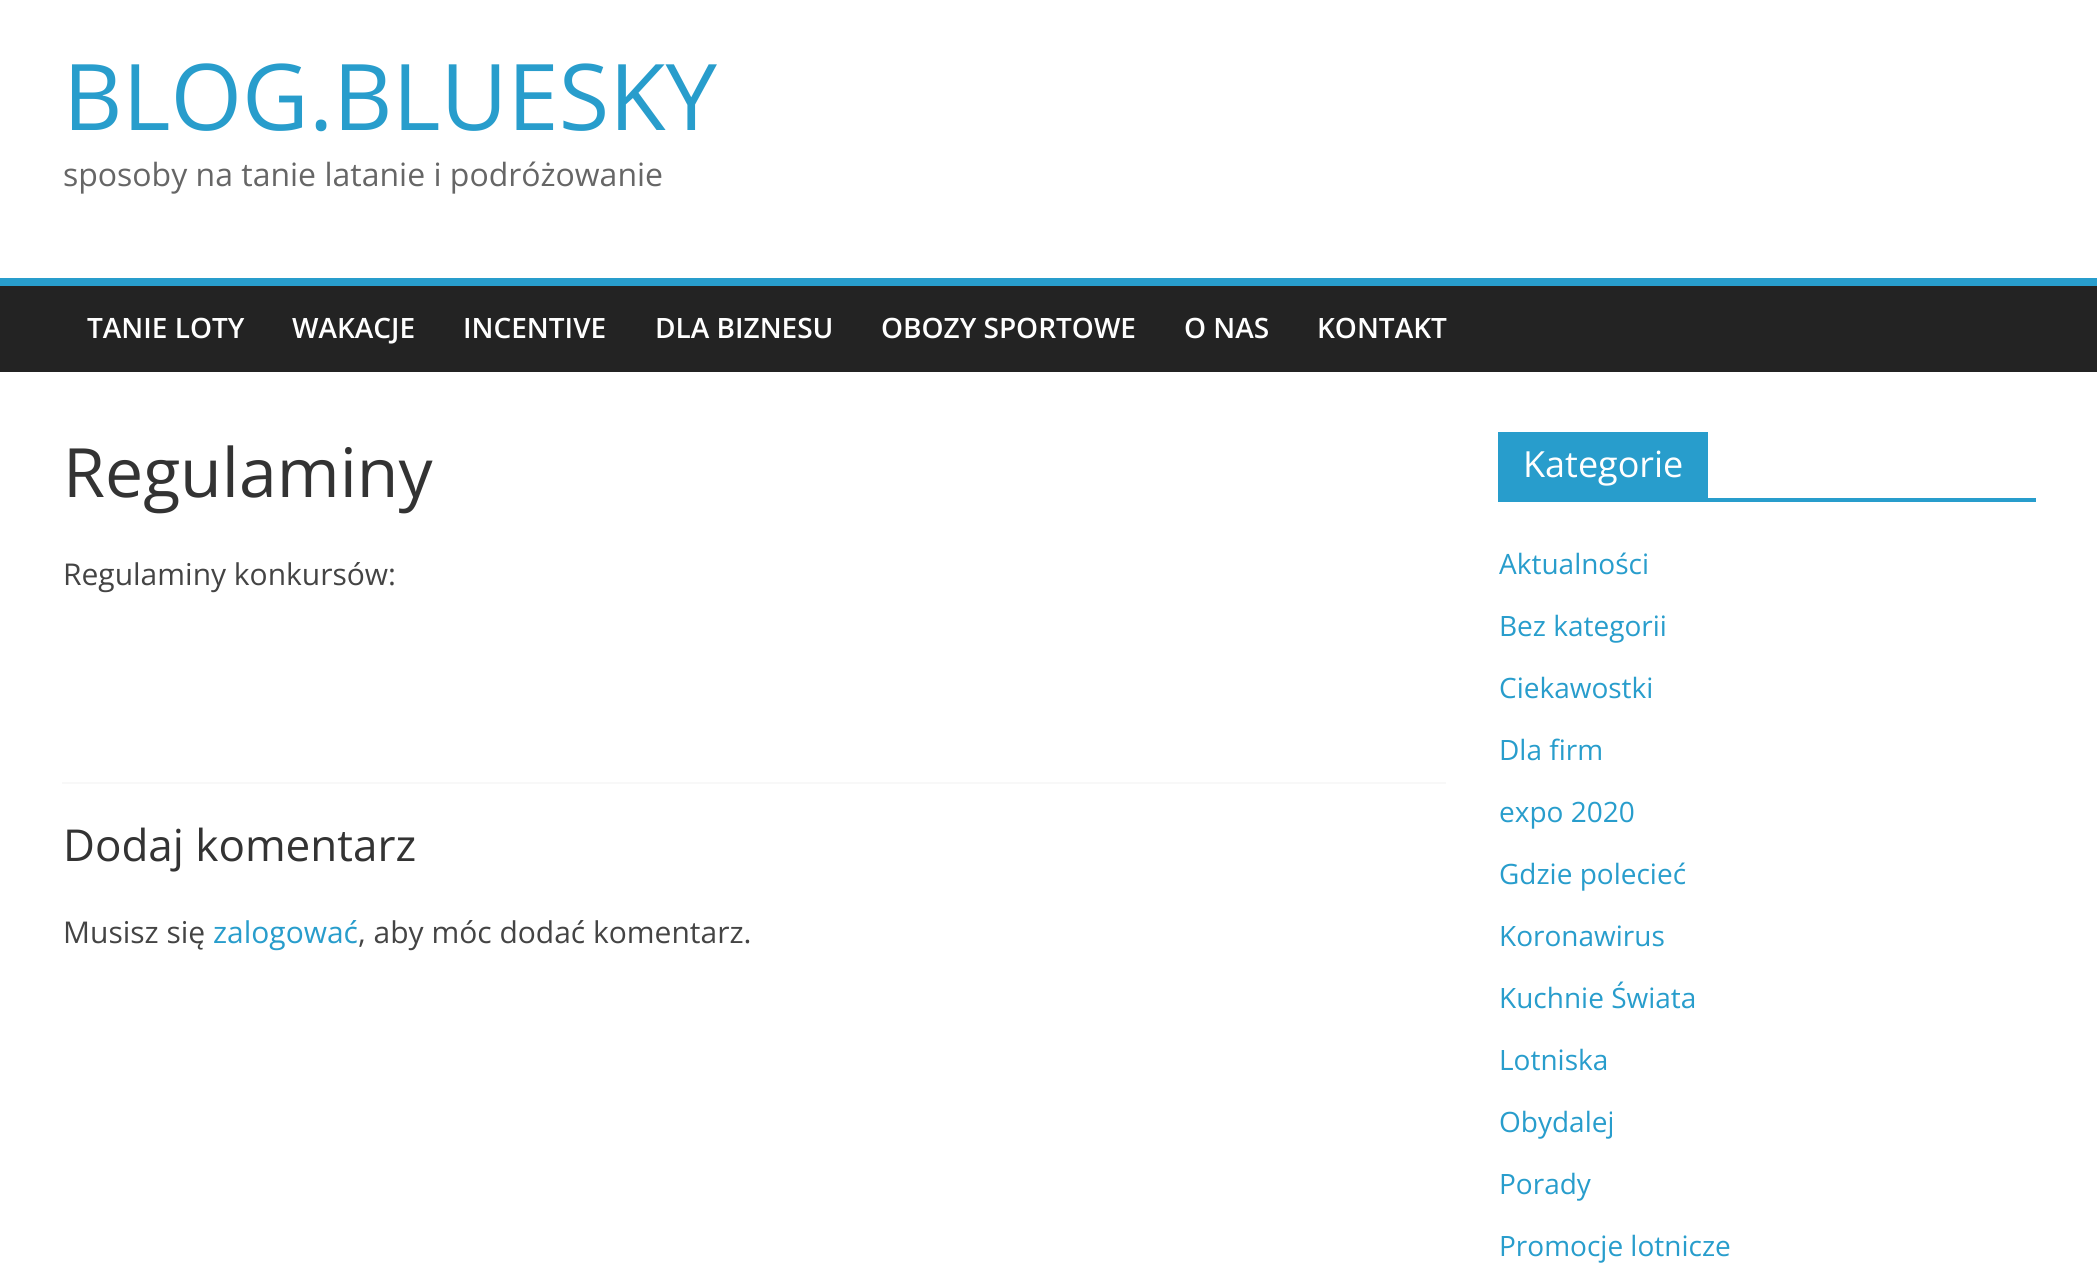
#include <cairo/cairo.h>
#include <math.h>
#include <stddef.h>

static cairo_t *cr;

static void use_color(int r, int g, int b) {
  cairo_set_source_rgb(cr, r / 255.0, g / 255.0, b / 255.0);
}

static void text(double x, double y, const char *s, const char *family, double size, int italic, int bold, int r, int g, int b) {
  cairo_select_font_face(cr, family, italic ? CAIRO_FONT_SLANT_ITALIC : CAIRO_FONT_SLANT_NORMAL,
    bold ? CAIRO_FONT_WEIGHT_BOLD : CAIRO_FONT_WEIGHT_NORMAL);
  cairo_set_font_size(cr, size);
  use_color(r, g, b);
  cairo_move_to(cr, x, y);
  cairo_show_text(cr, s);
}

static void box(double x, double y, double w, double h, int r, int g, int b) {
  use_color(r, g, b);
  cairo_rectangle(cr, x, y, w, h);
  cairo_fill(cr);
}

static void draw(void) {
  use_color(255, 255, 255);
  cairo_paint(cr);
  box(0, 286, 2097, 86, 35, 35, 35);
  box(0, 278, 2097, 8, 40, 157, 204);
  box(62, 782, 1384, 2, 248, 248, 248);
  box(1498, 498, 538, 4, 40, 157, 204);
  box(1498, 432, 210, 66, 40, 157, 204);
  text(63, 130, "BLOG.BLUESKY", "Open Sans", 92, 0, 0, 40, 157, 204);
  text(63, 186, "sposoby na tanie latanie i podróżowanie", "Open Sans", 32, 0, 0, 102, 102, 102);
  text(87, 338, "TANIE LOTY", "Open Sans SemiBold", 28, 0, 0, 255, 255, 255);
  text(292, 338, "WAKACJE", "Open Sans SemiBold", 28, 0, 0, 255, 255, 255);
  text(463, 338, "INCENTIVE", "Open Sans SemiBold", 28, 0, 0, 255, 255, 255);
  text(655, 338, "DLA BIZNESU", "Open Sans SemiBold", 28, 0, 0, 255, 255, 255);
  text(881, 338, "OBOZY SPORTOWE", "Open Sans SemiBold", 28, 0, 0, 255, 255, 255);
  text(1184, 338, "O NAS", "Open Sans SemiBold", 28, 0, 0, 255, 255, 255);
  text(1317, 338, "KONTAKT", "Open Sans SemiBold", 28, 0, 0, 255, 255, 255);
  text(63, 497, "Regulaminy", "Open Sans", 68, 0, 0, 51, 51, 51);
  text(63, 585, "Regulaminy konkursów:", "Open Sans", 30, 0, 0, 68, 68, 68);
  text(63, 861, "Dodaj komentarz", "Open Sans", 44, 0, 0, 51, 51, 51);
  text(63, 943, "Musisz się", "Open Sans", 30, 0, 0, 68, 68, 68);
  text(213, 943, "zalogować", "Open Sans", 30, 0, 0, 40, 157, 204);
  text(358, 943, ", aby móc dodać komentarz.", "Open Sans", 30, 0, 0, 68, 68, 68);
  text(1523, 477, "Kategorie", "Open Sans", 36, 0, 0, 255, 255, 255);
  text(1499, 574, "Aktualności", "Open Sans", 28, 0, 0, 40, 157, 204);
  text(1499, 636, "Bez kategorii", "Open Sans", 28, 0, 0, 40, 157, 204);
  text(1499, 698, "Ciekawostki", "Open Sans", 28, 0, 0, 40, 157, 204);
  text(1499, 760, "Dla firm", "Open Sans", 28, 0, 0, 40, 157, 204);
  text(1499, 822, "expo 2020", "Open Sans", 28, 0, 0, 40, 157, 204);
  text(1499, 884, "Gdzie polecieć", "Open Sans", 28, 0, 0, 40, 157, 204);
  text(1499, 946, "Koronawirus", "Open Sans", 28, 0, 0, 40, 157, 204);
  text(1499, 1008, "Kuchnie Świata", "Open Sans", 28, 0, 0, 40, 157, 204);
  text(1499, 1070, "Lotniska", "Open Sans", 28, 0, 0, 40, 157, 204);
  text(1499, 1132, "Obydalej", "Open Sans", 28, 0, 0, 40, 157, 204);
  text(1499, 1194, "Porady", "Open Sans", 28, 0, 0, 40, 157, 204);
  text(1499, 1256, "Promocje lotnicze", "Open Sans", 28, 0, 0, 40, 157, 204);
}

int main(void) {
  cairo_surface_t *surface = cairo_image_surface_create(CAIRO_FORMAT_RGB24, 2097, 1281);
  cr = cairo_create(surface);
  cairo_font_options_t *options = cairo_font_options_create();
  cairo_font_options_set_hint_metrics(options, CAIRO_HINT_METRICS_OFF);
  cairo_font_options_set_hint_style(options, CAIRO_HINT_STYLE_NONE);
  cairo_set_font_options(cr, options);
  cairo_set_miter_limit(cr, 4);
  draw();
  cairo_surface_write_to_png(surface, "out.png");
  cairo_font_options_destroy(options);
  cairo_destroy(cr);
  cairo_surface_destroy(surface);
  return 0;
}
